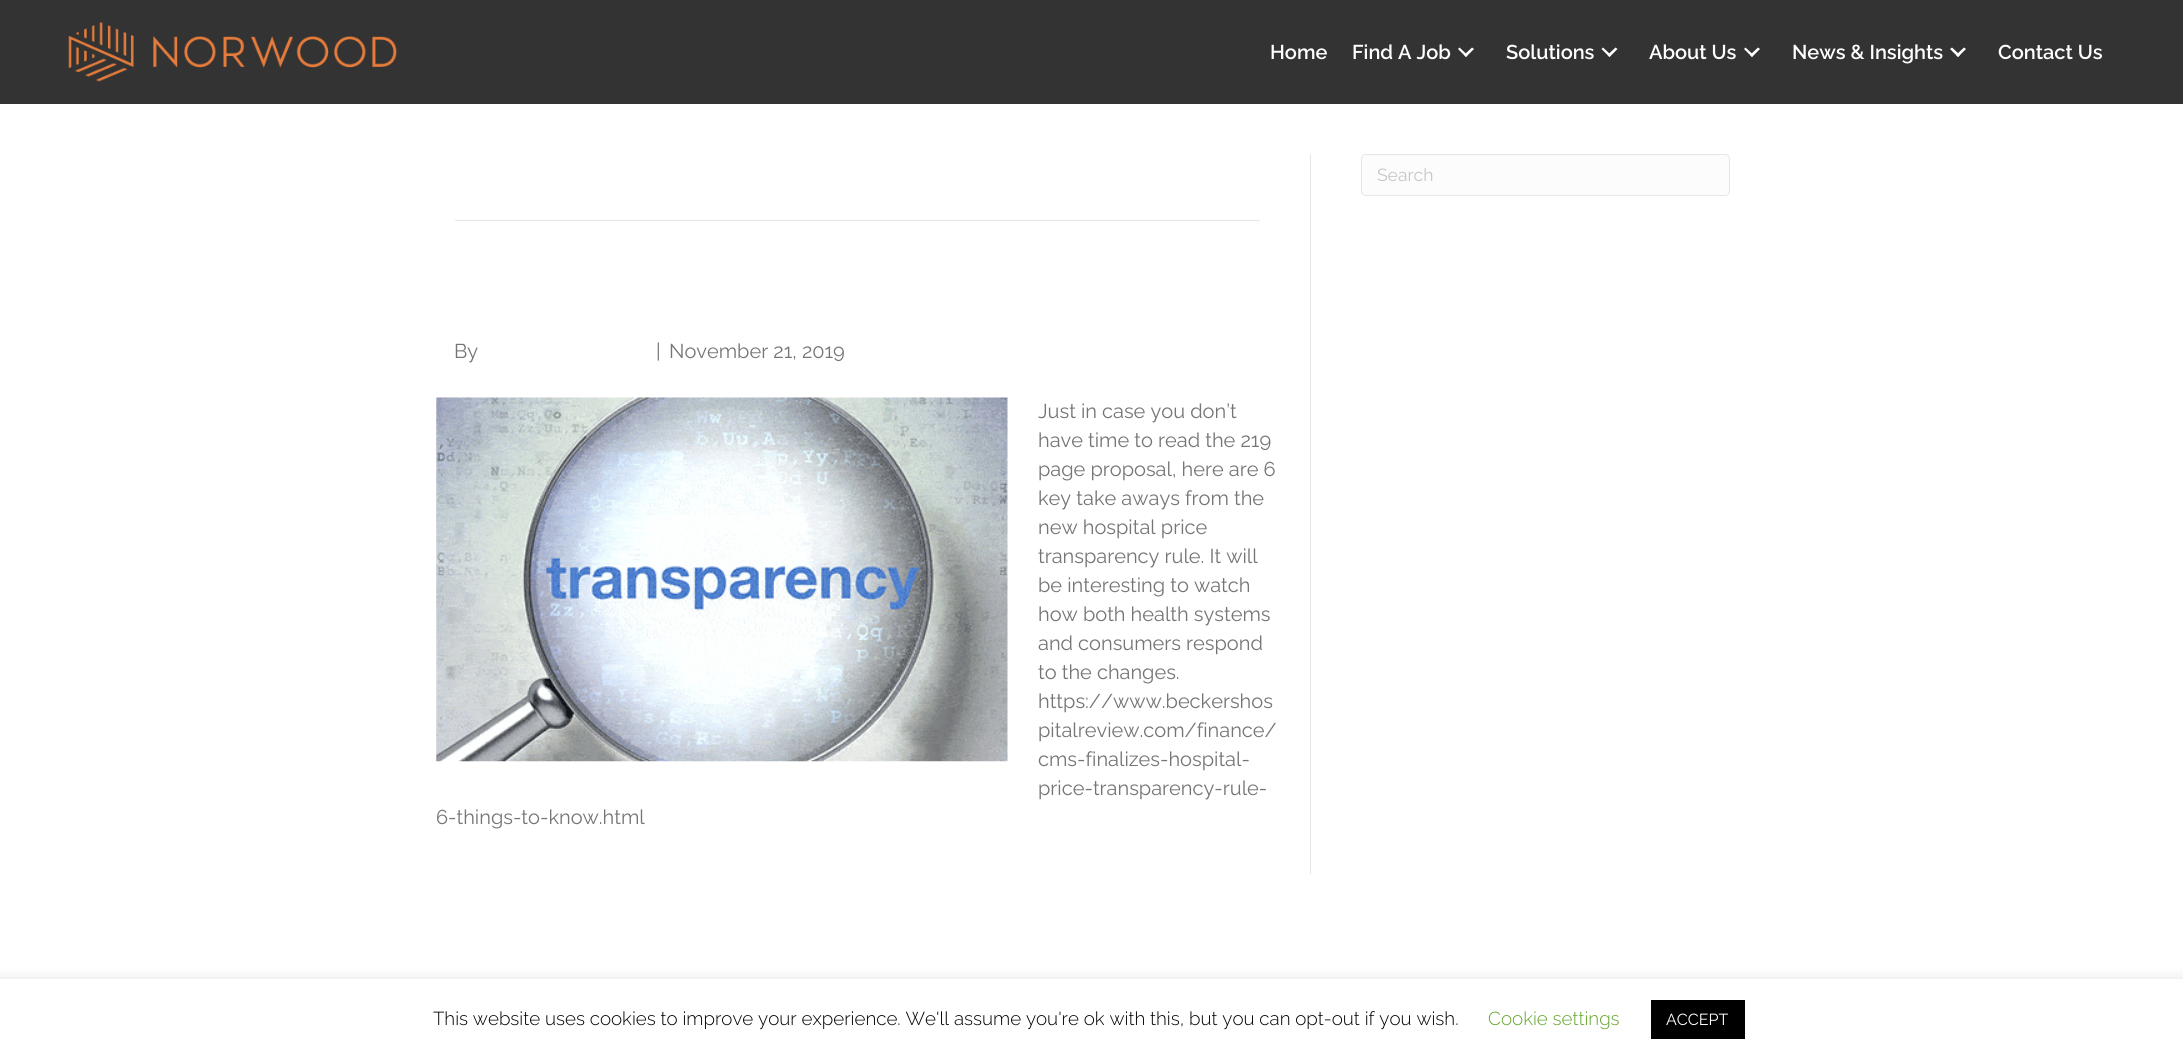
#include <cairo/cairo.h>
#include <math.h>
#include <stddef.h>

static cairo_t *cr;

static void use_color(int r, int g, int b) {
  cairo_set_source_rgb(cr, r / 255.0, g / 255.0, b / 255.0);
}

static void text(double x, double y, const char *s, const char *family, double size, int italic, int bold, int r, int g, int b) {
  cairo_select_font_face(cr, family, italic ? CAIRO_FONT_SLANT_ITALIC : CAIRO_FONT_SLANT_NORMAL,
    bold ? CAIRO_FONT_WEIGHT_BOLD : CAIRO_FONT_WEIGHT_NORMAL);
  cairo_set_font_size(cr, size);
  use_color(r, g, b);
  cairo_move_to(cr, x, y);
  cairo_show_text(cr, s);
}

static void box(double x, double y, double w, double h, int r, int g, int b) {
  use_color(r, g, b);
  cairo_rectangle(cr, x, y, w, h);
  cairo_fill(cr);
}

static void round_rect(double x, double y, double w, double h, double r) {
  cairo_new_sub_path(cr);
  cairo_arc(cr, x + w - r, y + h - r, r, 0, M_PI / 2);
  cairo_arc(cr, x + r, y + h - r, r, M_PI / 2, M_PI);
  cairo_arc(cr, x + r, y + r, r, M_PI, 1.5 * M_PI);
  cairo_arc(cr, x + w - r, y + r, r, 1.5 * M_PI, 2 * M_PI);
  cairo_close_path(cr);
}

static void shadow(double x, double y, double w, double h, double r, double blur, double alpha) {
  cairo_push_group_with_content(cr, CAIRO_CONTENT_ALPHA);
  cairo_set_operator(cr, CAIRO_OPERATOR_SOURCE);
  for (int i = 15; i >= -15 && fmin(w, h) + blur * i / 3 > 0; i -= 2) {
    double e = blur * i / 6;
    cairo_set_source_rgba(cr, 0, 0, 0, alpha * erfc((i - 1) / 8.5) / 2);
    round_rect(x - e, y - e, w + 2 * e, h + 2 * e, fmax(0, fmin(r + e + blur * .6, fmin(w, h) / 2 + e)));
    cairo_fill(cr);
  }
  cairo_pattern_t *soft = cairo_pop_group(cr);
  cairo_mask(cr, soft);
  cairo_pattern_destroy(soft);
}

static void picture(const char *path, double x, double y, double w, double h) {
  cairo_surface_t *image = cairo_image_surface_create_from_png(path);
  cairo_save(cr);
  cairo_set_source_surface(cr, image, x, y);
  cairo_rectangle(cr, x, y, w, h);
  cairo_fill(cr);
  cairo_restore(cr);
  cairo_surface_destroy(image);
}

static void draw(void) {
  use_color(51, 51, 51);
  cairo_paint(cr);
  picture("img_01.png", 68, 22, 329, 60);
  use_color(255, 255, 255);
  cairo_new_path(cr);
  cairo_move_to(cr, 1472, 47.5);
  cairo_line_to(cr, 1474, 49);
  cairo_line_to(cr, 1466, 57);
  cairo_line_to(cr, 1464, 55);
  cairo_close_path(cr);
  cairo_fill(cr);
  cairo_new_path(cr);
  cairo_move_to(cr, 1459.5, 47.5);
  cairo_line_to(cr, 1467.5, 55);
  cairo_line_to(cr, 1466, 57);
  cairo_line_to(cr, 1458, 49);
  cairo_close_path(cr);
  cairo_fill(cr);
  cairo_new_path(cr);
  cairo_move_to(cr, 1615.5, 47.5);
  cairo_line_to(cr, 1617.5, 49);
  cairo_line_to(cr, 1609.5, 57);
  cairo_line_to(cr, 1607.5, 55);
  cairo_close_path(cr);
  cairo_fill(cr);
  cairo_new_path(cr);
  cairo_move_to(cr, 1603, 47.5);
  cairo_line_to(cr, 1611, 55);
  cairo_line_to(cr, 1609.5, 57);
  cairo_line_to(cr, 1601.5, 49);
  cairo_close_path(cr);
  cairo_fill(cr);
  cairo_new_path(cr);
  cairo_move_to(cr, 1758, 47.5);
  cairo_line_to(cr, 1760, 49);
  cairo_line_to(cr, 1752, 57);
  cairo_line_to(cr, 1750, 55);
  cairo_close_path(cr);
  cairo_fill(cr);
  cairo_new_path(cr);
  cairo_move_to(cr, 1745.5, 47.5);
  cairo_line_to(cr, 1753.5, 55);
  cairo_line_to(cr, 1752, 57);
  cairo_line_to(cr, 1744, 49);
  cairo_close_path(cr);
  cairo_fill(cr);
  cairo_new_path(cr);
  cairo_move_to(cr, 1964, 47.5);
  cairo_line_to(cr, 1966, 49);
  cairo_line_to(cr, 1958, 57);
  cairo_line_to(cr, 1956, 55);
  cairo_close_path(cr);
  cairo_fill(cr);
  cairo_new_path(cr);
  cairo_move_to(cr, 1952, 47.5);
  cairo_line_to(cr, 1960, 55);
  cairo_line_to(cr, 1958, 57);
  cairo_line_to(cr, 1950, 49);
  cairo_close_path(cr);
  cairo_fill(cr);
  box(0, 104, 2183, 875, 255, 255, 255);
  use_color(252, 252, 252);
  round_rect(1361.5, 154.5, 368, 41, 4.5);
  cairo_fill_preserve(cr);
  use_color(230, 230, 230);
  cairo_set_line_width(cr, 1);
  cairo_stroke(cr);
  box(1310, 154, 1, 720, 230, 230, 230);
  box(455, 220, 805, 1, 230, 230, 230);
  picture("img_02.png", 436, 397, 572, 365);
  use_color(172, 171, 171);
  shadow(0, 978, 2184, 81, 0, 6, 0.3);
  box(0, 979, 2183, 81, 255, 255, 255);
  box(1651, 1000, 94, 39, 0, 0, 0);
  text(1270, 59, "Home", "Raleway SemiBold", 20, 0, 0, 255, 255, 255);
  text(1352, 59, "Find A Job", "Raleway SemiBold", 20, 0, 0, 255, 255, 255);
  text(1506, 59, "Solutions", "Raleway SemiBold", 20, 0, 0, 255, 255, 255);
  text(1649, 59, "About Us", "Raleway SemiBold", 20, 0, 0, 255, 255, 255);
  text(1792, 59, "News & Insights", "Raleway SemiBold", 20, 0, 0, 255, 255, 255);
  text(1998, 59, "Contact Us", "Raleway SemiBold", 20, 0, 0, 255, 255, 255);
  text(1377, 181, "Search", "Raleway", 17.5, 0, 0, 198, 198, 198);
  text(454, 358, "By", "Raleway", 20, 0, 0, 117, 117, 117);
  text(656, 358, "|", "Raleway", 20, 0, 0, 117, 117, 117);
  text(669, 358, "November 21, 2019", "Raleway", 20, 0, 0, 117, 117, 117);
  text(1038, 418, "Just in case you don’t", "Raleway", 20, 0, 0, 117, 117, 117);
  text(1038, 447, "have time to read the 219", "Raleway", 20, 0, 0, 117, 117, 117);
  text(1038, 476, "page proposal, here are 6", "Raleway", 20, 0, 0, 117, 117, 117);
  text(1038, 505, "key take aways from the", "Raleway", 20, 0, 0, 117, 117, 117);
  text(1038, 534, "new hospital price", "Raleway", 20, 0, 0, 117, 117, 117);
  text(1038, 563, "transparency rule. It will", "Raleway", 20, 0, 0, 117, 117, 117);
  text(1038, 592, "be interesting to watch", "Raleway", 20, 0, 0, 117, 117, 117);
  text(1038, 621, "how both health systems", "Raleway", 20, 0, 0, 117, 117, 117);
  text(1038, 650, "and consumers respond", "Raleway", 20, 0, 0, 117, 117, 117);
  text(1038, 679, "to the changes.", "Raleway", 20, 0, 0, 117, 117, 117);
  text(1038, 708, "https://www.beckershos", "Raleway", 20, 0, 0, 117, 117, 117);
  text(1038, 737, "pitalreview.com/finance/", "Raleway", 20, 0, 0, 117, 117, 117);
  text(1038, 766, "cms-finalizes-hospital-", "Raleway", 20, 0, 0, 117, 117, 117);
  text(1038, 795, "price-transparency-rule-", "Raleway", 20, 0, 0, 117, 117, 117);
  text(436, 824, "6-things-to-know.html", "Raleway", 20, 0, 0, 117, 117, 117);
  text(433, 1025, "This website uses cookies to improve your experience. We'll assume you're ok with this, but you can opt-out if you wish.", "Raleway Light", 18.75, 0, 0, 0, 0, 0);
  text(1488, 1025, "Cookie settings", "Raleway Light", 18.75, 0, 0, 98, 163, 41);
  text(1666, 1025, "ACCEPT", "Raleway", 16, 0, 0, 255, 255, 255);
}

int main(void) {
  cairo_surface_t *surface = cairo_image_surface_create(CAIRO_FORMAT_RGB24, 2183, 1060);
  cr = cairo_create(surface);
  cairo_font_options_t *options = cairo_font_options_create();
  cairo_font_options_set_hint_metrics(options, CAIRO_HINT_METRICS_OFF);
  cairo_font_options_set_hint_style(options, CAIRO_HINT_STYLE_NONE);
  cairo_set_font_options(cr, options);
  cairo_set_miter_limit(cr, 4);
  draw();
  cairo_surface_write_to_png(surface, "out.png");
  cairo_font_options_destroy(options);
  cairo_destroy(cr);
  cairo_surface_destroy(surface);
  return 0;
}
